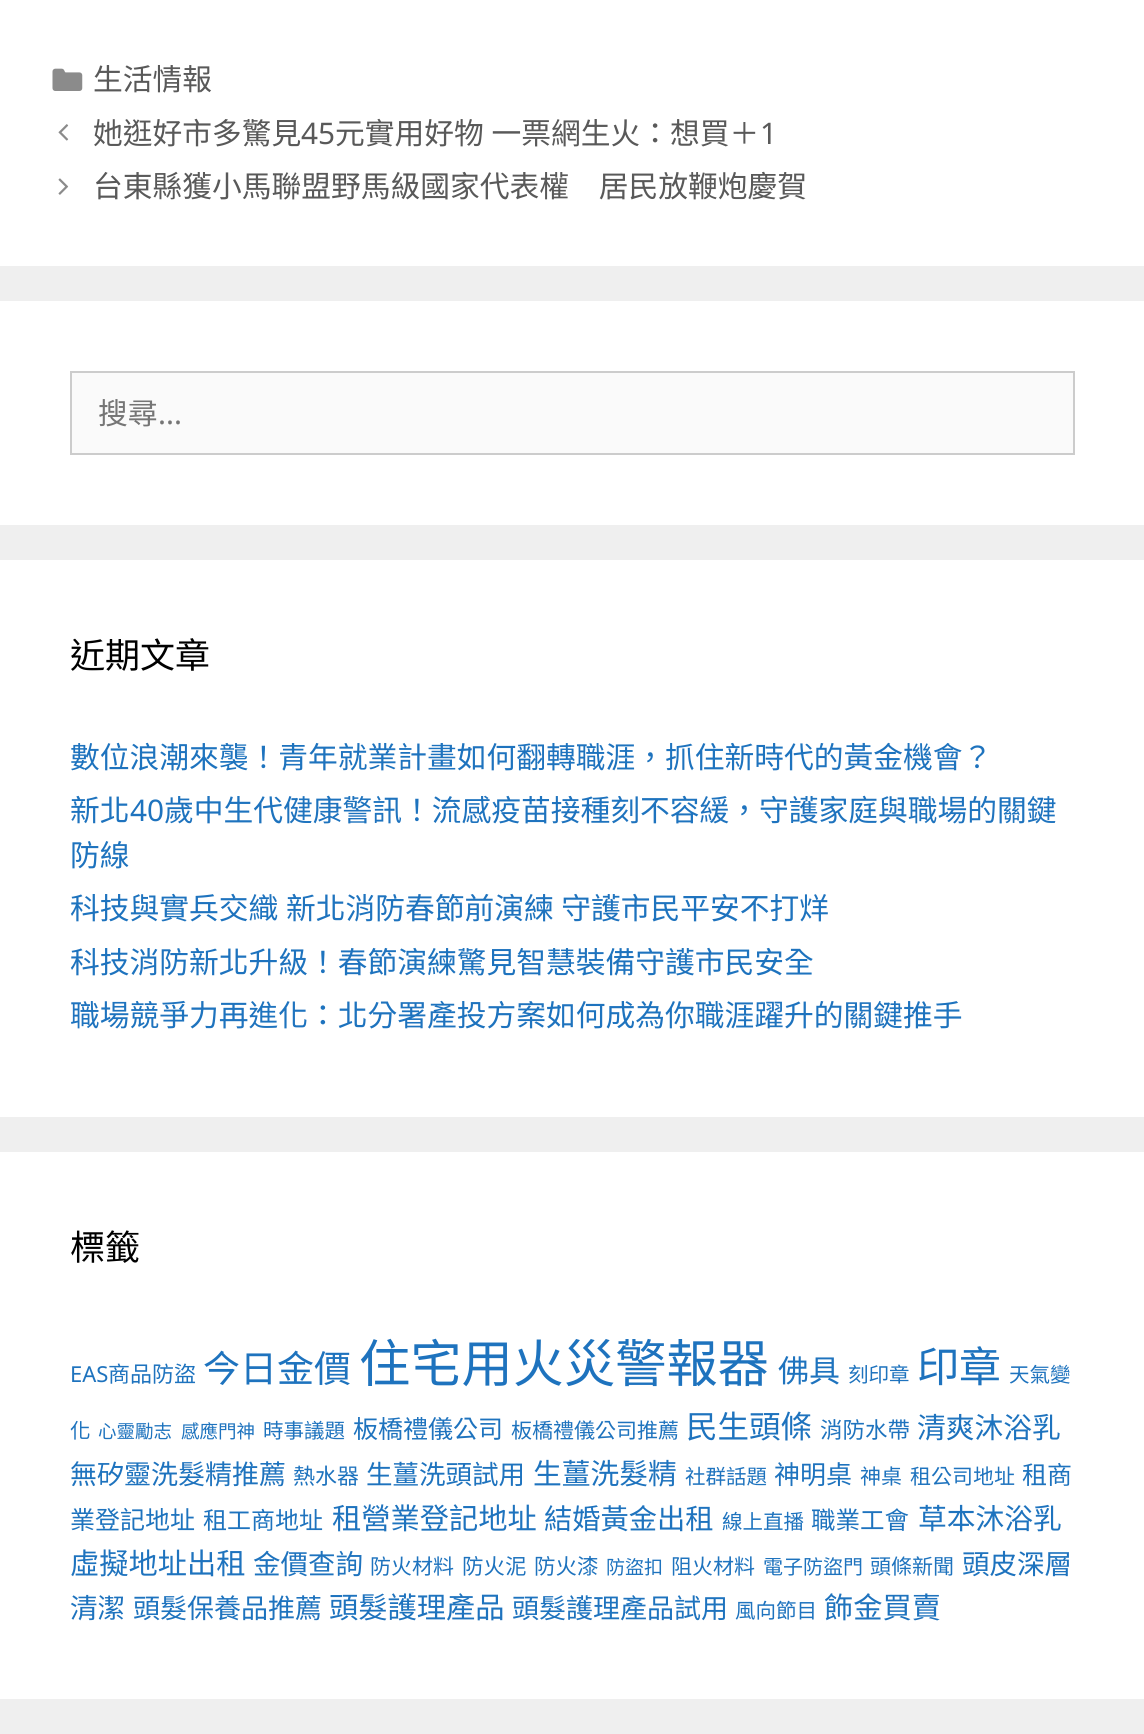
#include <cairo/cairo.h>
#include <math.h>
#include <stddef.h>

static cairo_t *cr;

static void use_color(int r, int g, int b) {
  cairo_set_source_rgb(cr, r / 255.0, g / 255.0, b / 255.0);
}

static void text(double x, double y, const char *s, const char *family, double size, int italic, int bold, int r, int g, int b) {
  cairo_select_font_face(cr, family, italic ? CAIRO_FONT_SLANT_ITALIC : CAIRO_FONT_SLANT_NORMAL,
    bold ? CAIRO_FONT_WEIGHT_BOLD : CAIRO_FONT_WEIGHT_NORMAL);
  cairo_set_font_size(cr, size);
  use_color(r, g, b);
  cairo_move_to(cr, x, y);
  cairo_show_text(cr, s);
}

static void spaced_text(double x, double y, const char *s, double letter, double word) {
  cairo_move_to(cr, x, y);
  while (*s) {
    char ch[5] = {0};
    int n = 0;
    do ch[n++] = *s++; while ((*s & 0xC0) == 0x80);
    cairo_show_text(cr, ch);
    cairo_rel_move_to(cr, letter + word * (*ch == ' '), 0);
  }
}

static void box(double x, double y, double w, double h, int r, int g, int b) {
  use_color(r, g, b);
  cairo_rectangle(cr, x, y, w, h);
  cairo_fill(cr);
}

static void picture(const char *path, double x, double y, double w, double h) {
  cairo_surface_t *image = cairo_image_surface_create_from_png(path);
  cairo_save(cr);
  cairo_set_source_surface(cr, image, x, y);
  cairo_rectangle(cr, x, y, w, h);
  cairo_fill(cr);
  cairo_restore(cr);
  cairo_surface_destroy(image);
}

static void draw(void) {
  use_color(239, 239, 239);
  cairo_paint(cr);
  box(0, 0, 1144, 266, 255, 255, 255);
  picture("img_01.png", 52, 68, 31, 23);
  picture("img_02.png", 58, 124, 11, 17);
  picture("img_03.png", 58, 178, 11, 17);
  box(0, 301, 1144, 224, 255, 255, 255);
  use_color(250, 250, 250);
  cairo_rectangle(cr, 71, 372, 1003, 82);
  cairo_fill_preserve(cr);
  use_color(204, 204, 204);
  cairo_stroke(cr);
  box(0, 560, 1144, 557, 255, 255, 255);
  box(0, 1152, 1144, 547, 255, 255, 255);
  text(93, 90, "生活情報", "Noto Sans CJK TC", 29.75, 0, 0, 89, 89, 89);
  text(93, 144, "她逛好市多驚見", "Noto Sans CJK TC", 29.75, 0, 0, 89, 89, 89);
  text(301, 144, "45", "Noto Sans", 29.75, 0, 0, 89, 89, 89);
  cairo_select_font_face(cr, "Noto Sans CJK TC", CAIRO_FONT_SLANT_NORMAL, CAIRO_FONT_WEIGHT_NORMAL);
  spaced_text(335, 144, "元實用好物 一票網生火：想買＋", 0, 1);
  text(760, 144, "1", "Noto Sans", 29.75, 0, 0, 89, 89, 89);
  text(93, 197, "台東縣獲小馬聯盟野馬級國家代表權　居民放鞭炮慶賀", "Noto Sans CJK TC", 29.75, 0, 0, 89, 89, 89);
  text(98, 424, "搜尋", "Noto Sans CJK TC", 29.75, 0, 0, 117, 117, 117);
  text(158, 424, "...", "Noto Sans", 29.75, 0, 0, 117, 117, 117);
  text(70, 668, "近期文章", "Noto Sans CJK TC", 35, 0, 0, 0, 0, 0);
  text(70, 768, "數位浪潮來襲！青年就業計畫如何翻轉職涯，抓住新時代的黃金機會？", "Noto Sans CJK TC", 29.75, 0, 0, 30, 115, 190);
  text(70, 821, "新北", "Noto Sans CJK TC", 29.75, 0, 0, 30, 115, 190);
  text(130, 821, "40", "Noto Sans", 29.75, 0, 0, 30, 115, 190);
  text(164, 821, "歲中生代健康警訊！流感疫苗接種刻不容緩，守護家庭與職場的關鍵", "Noto Sans CJK TC", 29.75, 0, 0, 30, 115, 190);
  text(70, 866, "防線", "Noto Sans CJK TC", 29.75, 0, 0, 30, 115, 190);
  spaced_text(70, 919, "科技與實兵交織 新北消防春節前演練 守護市民平安不打烊", 0, 1);
  text(70, 973, "科技消防新北升級！春節演練驚見智慧裝備守護市民安全", "Noto Sans CJK TC", 29.75, 0, 0, 30, 115, 190);
  text(70, 1026, "職場競爭力再進化：北分署產投方案如何成為你職涯躍升的關鍵推手", "Noto Sans CJK TC", 29.75, 0, 0, 30, 115, 190);
  text(70, 1260, "標籤", "Noto Sans CJK TC", 35, 0, 0, 0, 0, 0);
  text(70, 1382, "EAS", "Noto Sans", 22, 0, 0, 30, 115, 190);
  text(108, 1382, "商品防盜", "Noto Sans CJK TC", 22, 0, 0, 30, 115, 190);
  text(203, 1382, "今日金價", "Noto Sans CJK TC", 37, 0, 0, 30, 115, 190);
  text(359, 1382, "住宅用火災警報器", "Noto Sans CJK TC", 51.25, 0, 0, 30, 115, 190);
  text(778, 1382, "佛具", "Noto Sans CJK TC", 31, 0, 0, 30, 115, 190);
  text(848, 1382, "刻印章", "Noto Sans CJK TC", 20.5, 0, 0, 30, 115, 190);
  text(917, 1382, "印章", "Noto Sans CJK TC", 42, 0, 0, 30, 115, 190);
  text(1009, 1382, "天氣變", "Noto Sans CJK TC", 20.5, 0, 0, 30, 115, 190);
  text(70, 1438, "化", "Noto Sans CJK TC", 20.5, 0, 0, 30, 115, 190);
  text(98, 1438, "心靈勵志", "Noto Sans CJK TC", 18.5, 0, 0, 30, 115, 190);
  text(181, 1438, "感應門神", "Noto Sans CJK TC", 18.5, 0, 0, 30, 115, 190);
  text(263, 1438, "時事議題", "Noto Sans CJK TC", 20.5, 0, 0, 30, 115, 190);
  text(353, 1438, "板橋禮儀公司", "Noto Sans CJK TC", 25, 0, 0, 30, 115, 190);
  text(511, 1438, "板橋禮儀公司推薦", "Noto Sans CJK TC", 21, 0, 0, 30, 115, 190);
  text(686, 1438, "民生頭條", "Noto Sans CJK TC", 31.5, 0, 0, 30, 115, 190);
  text(820, 1438, "消防水帶", "Noto Sans CJK TC", 22.5, 0, 0, 30, 115, 190);
  text(917, 1438, "清爽沐浴乳", "Noto Sans CJK TC", 28.75, 0, 0, 30, 115, 190);
  text(70, 1484, "無矽靈洗髮精推薦", "Noto Sans CJK TC", 27, 0, 0, 30, 115, 190);
  text(293, 1484, "熱水器", "Noto Sans CJK TC", 22, 0, 0, 30, 115, 190);
  text(366, 1484, "生薑洗頭試用", "Noto Sans CJK TC", 26.5, 0, 0, 30, 115, 190);
  text(533, 1484, "生薑洗髮精", "Noto Sans CJK TC", 28.75, 0, 0, 30, 115, 190);
  text(685, 1484, "社群話題", "Noto Sans CJK TC", 20.5, 0, 0, 30, 115, 190);
  text(774, 1484, "神明桌", "Noto Sans CJK TC", 26, 0, 0, 30, 115, 190);
  text(860, 1484, "神桌", "Noto Sans CJK TC", 21, 0, 0, 30, 115, 190);
  text(910, 1484, "租公司地址", "Noto Sans CJK TC", 21, 0, 0, 30, 115, 190);
  text(1022, 1484, "租商", "Noto Sans CJK TC", 25, 0, 0, 30, 115, 190);
  text(70, 1529, "業登記地址", "Noto Sans CJK TC", 25, 0, 0, 30, 115, 190);
  text(203, 1529, "租工商地址", "Noto Sans CJK TC", 24, 0, 0, 30, 115, 190);
  text(332, 1529, "租營業登記地址", "Noto Sans CJK TC", 29.25, 0, 0, 30, 115, 190);
  text(544, 1529, "結婚黃金出租", "Noto Sans CJK TC", 28.25, 0, 0, 30, 115, 190);
  text(722, 1529, "線上直播", "Noto Sans CJK TC", 20.5, 0, 0, 30, 115, 190);
  text(811, 1529, "職業工會", "Noto Sans CJK TC", 24.5, 0, 0, 30, 115, 190);
  text(918, 1529, "草本沐浴乳", "Noto Sans CJK TC", 28.75, 0, 0, 30, 115, 190);
  text(70, 1574, "虛擬地址出租", "Noto Sans CJK TC", 29.25, 0, 0, 30, 115, 190);
  text(253, 1574, "金價查詢", "Noto Sans CJK TC", 27.5, 0, 0, 30, 115, 190);
  text(370, 1574, "防火材料", "Noto Sans CJK TC", 21, 0, 0, 30, 115, 190);
  text(462, 1574, "防火泥", "Noto Sans CJK TC", 21.5, 0, 0, 30, 115, 190);
  text(534, 1574, "防火漆", "Noto Sans CJK TC", 21.5, 0, 0, 30, 115, 190);
  text(606, 1574, "防盜扣", "Noto Sans CJK TC", 19, 0, 0, 30, 115, 190);
  text(671, 1574, "阻火材料", "Noto Sans CJK TC", 21, 0, 0, 30, 115, 190);
  text(763, 1574, "電子防盜門", "Noto Sans CJK TC", 20, 0, 0, 30, 115, 190);
  text(870, 1574, "頭條新聞", "Noto Sans CJK TC", 21, 0, 0, 30, 115, 190);
  text(962, 1574, "頭皮深層", "Noto Sans CJK TC", 27.5, 0, 0, 30, 115, 190);
  text(70, 1618, "清潔", "Noto Sans CJK TC", 27.5, 0, 0, 30, 115, 190);
  text(133, 1618, "頭髮保養品推薦", "Noto Sans CJK TC", 27, 0, 0, 30, 115, 190);
  text(329, 1618, "頭髮護理產品", "Noto Sans CJK TC", 29.25, 0, 0, 30, 115, 190);
  text(512, 1618, "頭髮護理產品試用", "Noto Sans CJK TC", 27, 0, 0, 30, 115, 190);
  text(735, 1618, "風向節目", "Noto Sans CJK TC", 20.5, 0, 0, 30, 115, 190);
  text(824, 1618, "飾金買賣", "Noto Sans CJK TC", 29.25, 0, 0, 30, 115, 190);
}

int main(void) {
  cairo_surface_t *surface = cairo_image_surface_create(CAIRO_FORMAT_RGB24, 1144, 1734);
  cr = cairo_create(surface);
  cairo_font_options_t *options = cairo_font_options_create();
  cairo_font_options_set_hint_metrics(options, CAIRO_HINT_METRICS_OFF);
  cairo_font_options_set_hint_style(options, CAIRO_HINT_STYLE_NONE);
  cairo_set_font_options(cr, options);
  cairo_set_miter_limit(cr, 4);
  draw();
  cairo_surface_write_to_png(surface, "out.png");
  cairo_font_options_destroy(options);
  cairo_destroy(cr);
  cairo_surface_destroy(surface);
  return 0;
}
